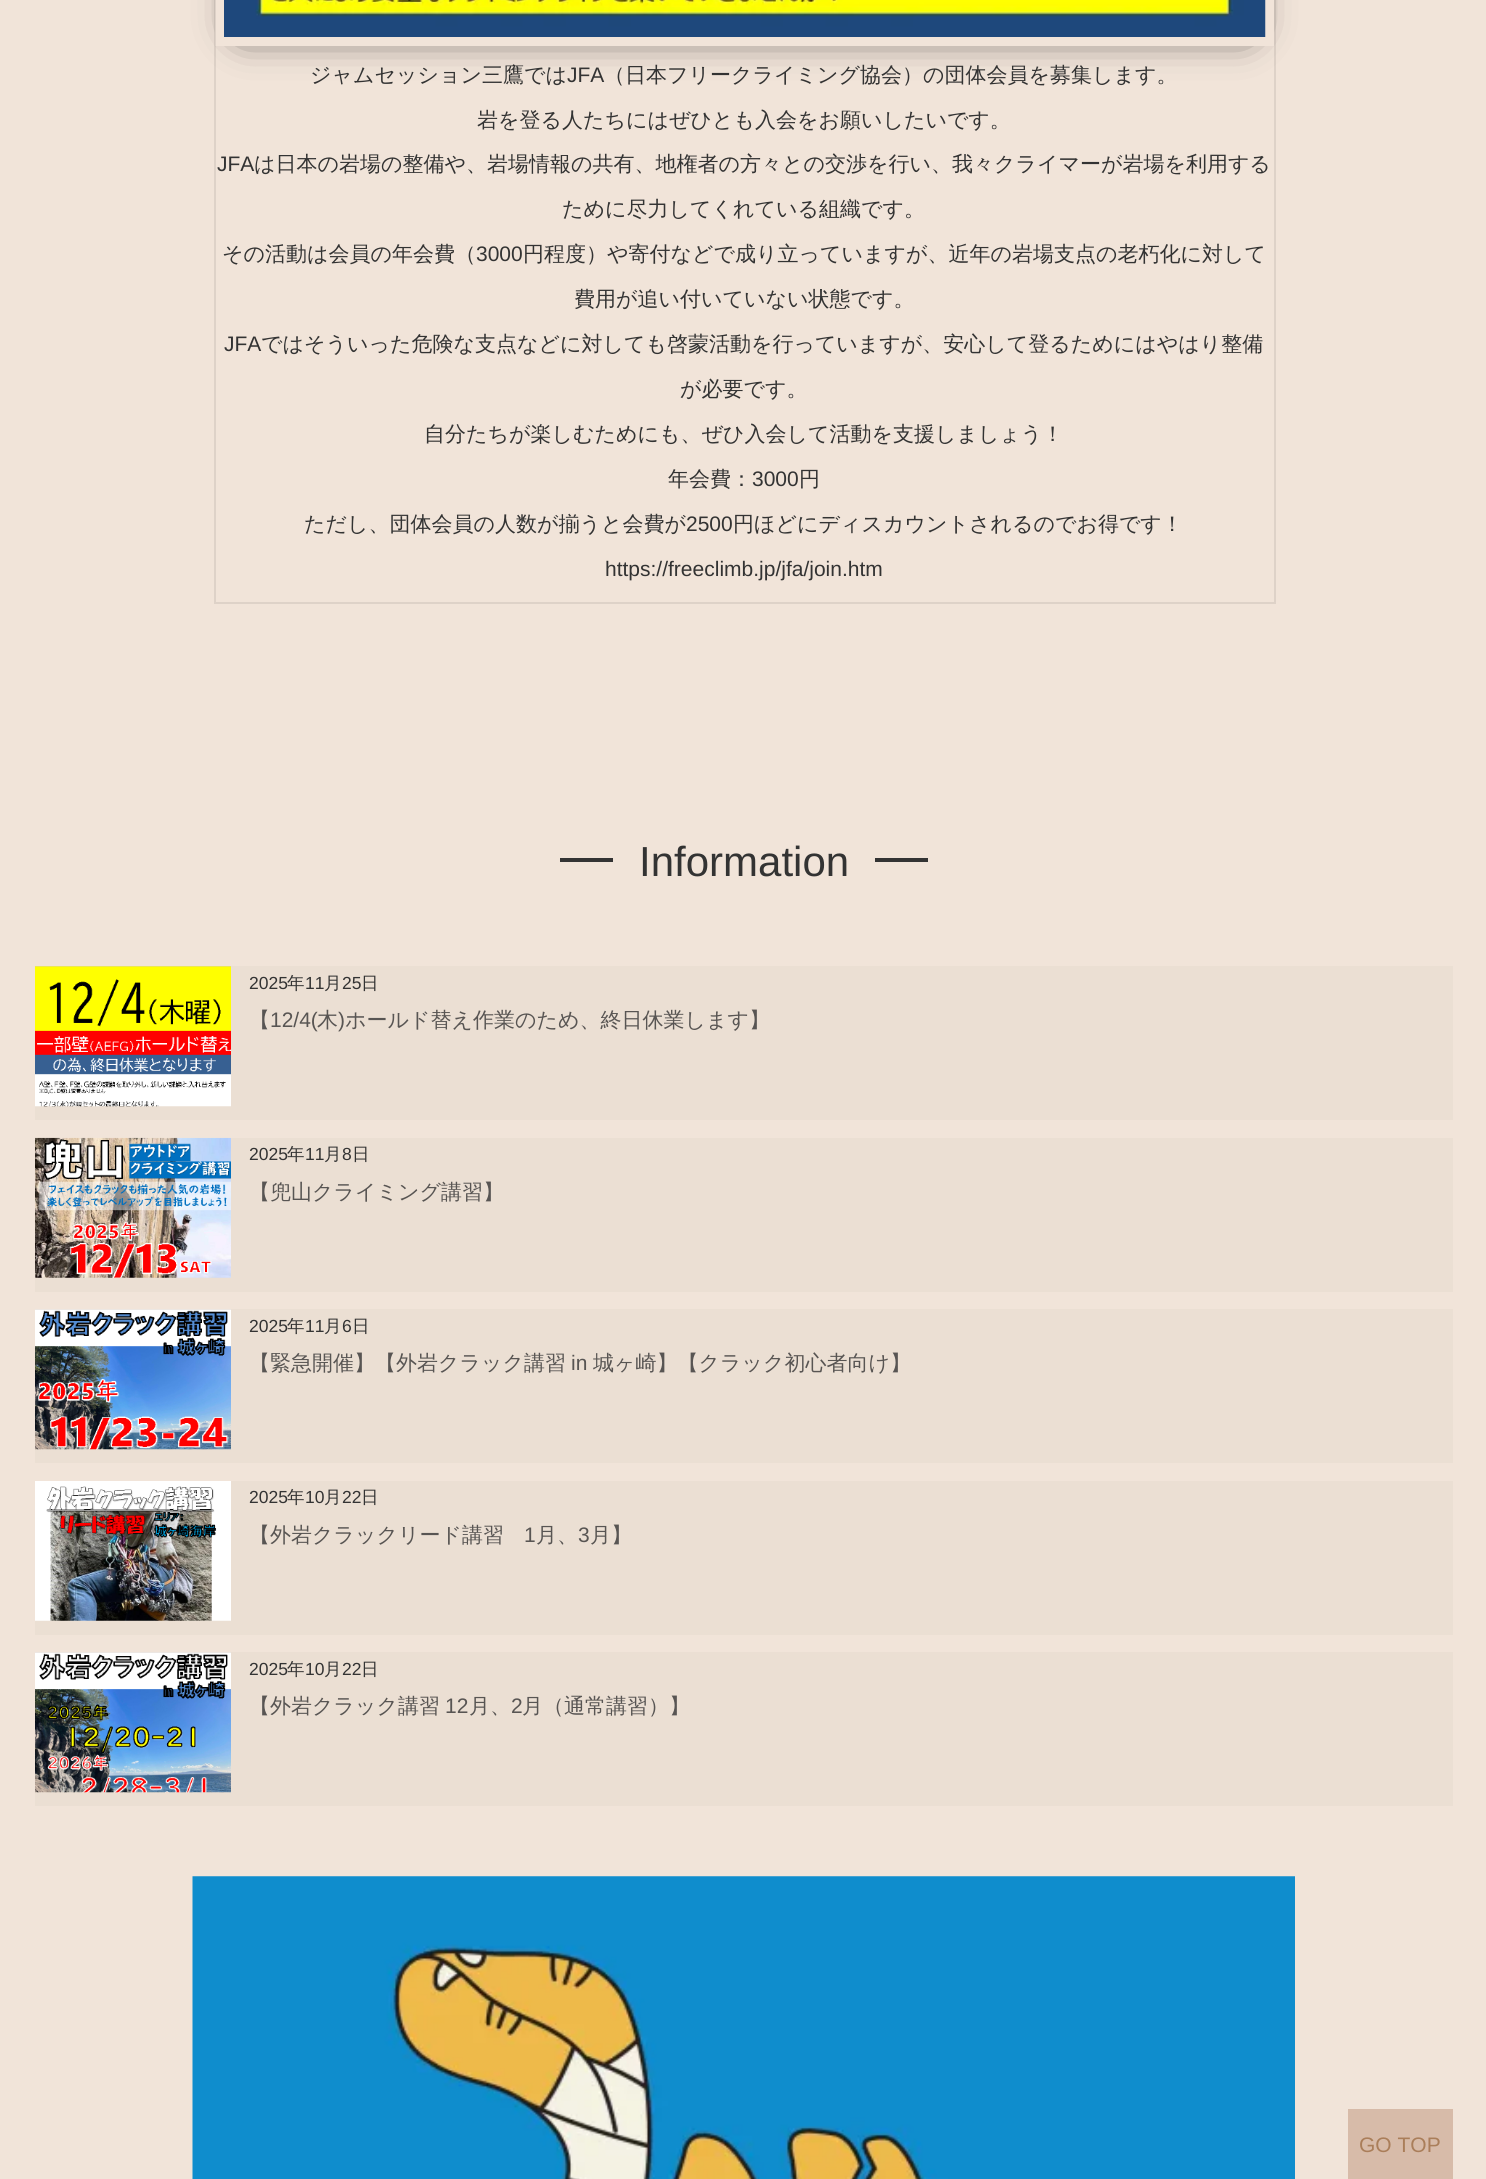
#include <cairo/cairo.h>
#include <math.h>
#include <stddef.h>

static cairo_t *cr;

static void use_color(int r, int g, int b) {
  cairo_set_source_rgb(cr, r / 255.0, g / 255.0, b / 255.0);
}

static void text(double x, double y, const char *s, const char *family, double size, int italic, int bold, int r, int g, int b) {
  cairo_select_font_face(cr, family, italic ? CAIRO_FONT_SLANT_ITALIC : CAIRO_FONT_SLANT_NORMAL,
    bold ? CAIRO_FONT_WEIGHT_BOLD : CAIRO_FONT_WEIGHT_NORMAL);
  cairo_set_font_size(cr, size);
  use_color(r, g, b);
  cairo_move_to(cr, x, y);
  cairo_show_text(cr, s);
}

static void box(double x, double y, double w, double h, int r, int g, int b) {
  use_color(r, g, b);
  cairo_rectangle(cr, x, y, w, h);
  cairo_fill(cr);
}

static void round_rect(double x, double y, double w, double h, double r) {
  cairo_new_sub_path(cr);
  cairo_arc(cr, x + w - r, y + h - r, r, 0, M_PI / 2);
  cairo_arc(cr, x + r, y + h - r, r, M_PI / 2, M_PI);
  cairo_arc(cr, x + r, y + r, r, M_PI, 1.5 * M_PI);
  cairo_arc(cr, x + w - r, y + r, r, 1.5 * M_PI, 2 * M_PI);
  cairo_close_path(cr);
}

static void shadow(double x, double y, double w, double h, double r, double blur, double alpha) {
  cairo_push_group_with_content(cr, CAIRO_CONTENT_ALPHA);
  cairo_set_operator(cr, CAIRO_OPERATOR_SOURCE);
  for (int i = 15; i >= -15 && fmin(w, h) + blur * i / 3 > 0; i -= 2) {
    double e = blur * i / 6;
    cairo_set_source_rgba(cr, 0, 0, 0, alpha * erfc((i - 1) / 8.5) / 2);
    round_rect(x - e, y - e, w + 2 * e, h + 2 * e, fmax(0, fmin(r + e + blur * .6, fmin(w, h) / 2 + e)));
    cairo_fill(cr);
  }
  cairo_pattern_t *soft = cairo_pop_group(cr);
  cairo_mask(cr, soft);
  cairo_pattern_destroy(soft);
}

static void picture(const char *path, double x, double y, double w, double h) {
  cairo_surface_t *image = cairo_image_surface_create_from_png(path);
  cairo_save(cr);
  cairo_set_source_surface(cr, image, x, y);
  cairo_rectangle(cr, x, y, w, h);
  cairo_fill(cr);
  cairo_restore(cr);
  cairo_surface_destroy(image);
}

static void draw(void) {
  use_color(241, 228, 217);
  cairo_paint(cr);
  cairo_rectangle(cr, 215, -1, 1060, 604);
  use_color(222, 210, 200);
  cairo_stroke(cr);
  cairo_save(cr);
  cairo_set_fill_rule(cr, CAIRO_FILL_RULE_EVEN_ODD);
  cairo_new_path(cr);
  cairo_move_to(cr, 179, 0);
  cairo_line_to(cr, 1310, 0);
  cairo_line_to(cr, 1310, 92);
  cairo_line_to(cr, 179, 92);
  cairo_close_path(cr);
  cairo_move_to(cr, 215, -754);
  cairo_line_to(cr, 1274, -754);
  cairo_line_to(cr, 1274, 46);
  cairo_line_to(cr, 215, 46);
  cairo_close_path(cr);
  cairo_clip(cr);
  use_color(0, 0, 0);
  shadow(243, -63, 1003, 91, 0, 21, 1);
  cairo_restore(cr);
  picture("img_01.png", 224, 0, 1042, 37);
  box(560, 858, 53, 4, 51, 51, 51);
  box(875, 858, 53, 4, 51, 51, 51);
  box(35, 966, 1418, 154, 235, 223, 211);
  box(35, 966, 196, 1, 212, 201, 190);
  picture("img_02.png", 35, 966, 196, 141);
  box(35, 1138, 1418, 154, 235, 223, 211);
  picture("img_03.png", 35, 1137, 196, 141);
  box(35, 1309, 1418, 154, 235, 223, 211);
  box(35, 1309, 196, 1, 212, 201, 190);
  picture("img_04.png", 35, 1309, 196, 141);
  box(35, 1481, 1418, 154, 235, 223, 211);
  picture("img_05.png", 35, 1481, 196, 140);
  box(35, 1652, 1418, 154, 235, 223, 211);
  box(35, 1652, 196, 1, 212, 201, 190);
  picture("img_06.png", 35, 1652, 196, 141);
  picture("img_07.png", 192, 1876, 1103, 303);
  box(1348, 2109, 105, 70, 215, 187, 169);
  text(310, 82, "ジャムセッション三鷹では", "WenQuanYi Zen Hei Medium", 21, 0, 0, 51, 51, 51);
  text(567, 82, "JFA", "Liberation Sans", 21, 0, 0, 51, 51, 51);
  text(604, 82, "（日本フリークライミング協会）の団体会員を募集します。", "WenQuanYi Zen Hei Medium", 21, 0, 0, 51, 51, 51);
  text(477, 127, "岩を登る人たちにはぜひとも入会をお願いしたいです。", "WenQuanYi Zen Hei Medium", 21, 0, 0, 51, 51, 51);
  text(217, 171, "JFA", "Liberation Sans", 21, 0, 0, 51, 51, 51);
  text(254, 171, "は日本の岩場の整備や、岩場情報の共有、地権者の方々との交渉を行い、我々クライマーが岩場を利用する", "WenQuanYi Zen Hei Medium", 21, 0, 0, 51, 51, 51);
  text(562, 216, "ために尽力してくれている組織です。", "WenQuanYi Zen Hei Medium", 21, 0, 0, 51, 51, 51);
  text(222, 261, "その活動は会員の年会費（", "WenQuanYi Zen Hei Medium", 21, 0, 0, 51, 51, 51);
  text(476, 261, "3000", "Liberation Sans", 21, 0, 0, 51, 51, 51);
  text(523, 261, "円程度）や寄付などで成り立っていますが、近年の岩場支点の老朽化に対して", "WenQuanYi Zen Hei Medium", 21, 0, 0, 51, 51, 51);
  text(574, 306, "費用が追い付いていない状態です。", "WenQuanYi Zen Hei Medium", 21, 0, 0, 51, 51, 51);
  text(224, 351, "JFA", "Liberation Sans", 21, 0, 0, 51, 51, 51);
  text(261, 351, "ではそういった危険な支点などに対しても啓蒙活動を行っていますが、安心して登るためにはやはり整備", "WenQuanYi Zen Hei Medium", 21, 0, 0, 51, 51, 51);
  text(680, 396, "が必要です。", "WenQuanYi Zen Hei Medium", 21, 0, 0, 51, 51, 51);
  text(424, 441, "自分たちが楽しむためにも、ぜひ入会して活動を支援しましょう！", "WenQuanYi Zen Hei Medium", 21, 0, 0, 51, 51, 51);
  text(668, 486, "年会費：", "WenQuanYi Zen Hei Medium", 21, 0, 0, 51, 51, 51);
  text(752, 486, "3000", "Liberation Sans", 21, 0, 0, 51, 51, 51);
  text(799, 486, "円", "WenQuanYi Zen Hei Medium", 21, 0, 0, 51, 51, 51);
  text(304, 531, "ただし、団体会員の人数が揃うと会費が", "WenQuanYi Zen Hei Medium", 21, 0, 0, 51, 51, 51);
  text(686, 531, "2500", "Liberation Sans", 21, 0, 0, 51, 51, 51);
  text(733, 531, "円ほどにディスカウントされるのでお得です！", "WenQuanYi Zen Hei Medium", 21, 0, 0, 51, 51, 51);
  text(605, 576, "https://freeclimb.jp/jfa/join.htm", "Liberation Sans", 21, 0, 0, 51, 51, 51);
  text(639, 876, "Information", "Liberation Sans", 42, 0, 0, 51, 51, 51);
  text(249, 989, "2025", "Liberation Sans", 17.5, 0, 0, 51, 51, 51);
  text(287, 989, "年", "WenQuanYi Zen Hei Medium", 17.5, 0, 0, 51, 51, 51);
  text(305, 989, "11", "Liberation Sans", 17.5, 0, 0, 51, 51, 51);
  text(324, 989, "月", "WenQuanYi Zen Hei Medium", 17.5, 0, 0, 51, 51, 51);
  text(342, 989, "25", "Liberation Sans", 17.5, 0, 0, 51, 51, 51);
  text(361, 989, "日", "WenQuanYi Zen Hei Medium", 17.5, 0, 0, 51, 51, 51);
  text(249, 1027, "【", "WenQuanYi Zen Hei Medium", 21, 0, 0, 88, 85, 83);
  text(270, 1027, "12/4(", "Liberation Sans", 21, 0, 0, 88, 85, 83);
  text(317, 1027, "木", "WenQuanYi Zen Hei Medium", 21, 0, 0, 88, 85, 83);
  text(338, 1027, ")", "Liberation Sans", 21, 0, 0, 88, 85, 83);
  text(345, 1027, "ホールド替え作業のため、終日休業します】", "WenQuanYi Zen Hei Medium", 21, 0, 0, 88, 85, 83);
  text(249, 1160, "2025", "Liberation Sans", 17.5, 0, 0, 51, 51, 51);
  text(287, 1160, "年", "WenQuanYi Zen Hei Medium", 17.5, 0, 0, 51, 51, 51);
  text(305, 1160, "11", "Liberation Sans", 17.5, 0, 0, 51, 51, 51);
  text(324, 1160, "月", "WenQuanYi Zen Hei Medium", 17.5, 0, 0, 51, 51, 51);
  text(342, 1160, "8", "Liberation Sans", 17.5, 0, 0, 51, 51, 51);
  text(352, 1160, "日", "WenQuanYi Zen Hei Medium", 17.5, 0, 0, 51, 51, 51);
  text(249, 1199, "【兜山クライミング講習】", "WenQuanYi Zen Hei Medium", 21, 0, 0, 88, 85, 83);
  text(249, 1332, "2025", "Liberation Sans", 17.5, 0, 0, 51, 51, 51);
  text(287, 1332, "年", "WenQuanYi Zen Hei Medium", 17.5, 0, 0, 51, 51, 51);
  text(305, 1332, "11", "Liberation Sans", 17.5, 0, 0, 51, 51, 51);
  text(324, 1332, "月", "WenQuanYi Zen Hei Medium", 17.5, 0, 0, 51, 51, 51);
  text(342, 1332, "6", "Liberation Sans", 17.5, 0, 0, 51, 51, 51);
  text(352, 1332, "日", "WenQuanYi Zen Hei Medium", 17.5, 0, 0, 51, 51, 51);
  text(249, 1370, "【緊急開催】【外岩クラック講習", "WenQuanYi Zen Hei Medium", 21, 0, 0, 88, 85, 83);
  text(571, 1370, "in", "Liberation Sans", 21, 0, 0, 88, 85, 83);
  text(593, 1370, "城ヶ崎】【クラック初心者向け】", "WenQuanYi Zen Hei Medium", 21, 0, 0, 88, 85, 83);
  text(249, 1503, "2025", "Liberation Sans", 17.5, 0, 0, 51, 51, 51);
  text(287, 1503, "年", "WenQuanYi Zen Hei Medium", 17.5, 0, 0, 51, 51, 51);
  text(305, 1503, "10", "Liberation Sans", 17.5, 0, 0, 51, 51, 51);
  text(324, 1503, "月", "WenQuanYi Zen Hei Medium", 17.5, 0, 0, 51, 51, 51);
  text(342, 1503, "22", "Liberation Sans", 17.5, 0, 0, 51, 51, 51);
  text(361, 1503, "日", "WenQuanYi Zen Hei Medium", 17.5, 0, 0, 51, 51, 51);
  text(249, 1542, "【外岩クラックリード講習", "WenQuanYi Zen Hei Medium", 21, 0, 0, 88, 85, 83);
  text(524, 1542, "1", "Liberation Sans", 21, 0, 0, 88, 85, 83);
  text(536, 1542, "月、", "WenQuanYi Zen Hei Medium", 21, 0, 0, 88, 85, 83);
  text(578, 1542, "3", "Liberation Sans", 21, 0, 0, 88, 85, 83);
  text(590, 1542, "月】", "WenQuanYi Zen Hei Medium", 21, 0, 0, 88, 85, 83);
  text(249, 1675, "2025", "Liberation Sans", 17.5, 0, 0, 51, 51, 51);
  text(287, 1675, "年", "WenQuanYi Zen Hei Medium", 17.5, 0, 0, 51, 51, 51);
  text(305, 1675, "10", "Liberation Sans", 17.5, 0, 0, 51, 51, 51);
  text(324, 1675, "月", "WenQuanYi Zen Hei Medium", 17.5, 0, 0, 51, 51, 51);
  text(342, 1675, "22", "Liberation Sans", 17.5, 0, 0, 51, 51, 51);
  text(361, 1675, "日", "WenQuanYi Zen Hei Medium", 17.5, 0, 0, 51, 51, 51);
  text(249, 1713, "【外岩クラック講習", "WenQuanYi Zen Hei Medium", 21, 0, 0, 88, 85, 83);
  text(445, 1713, "12", "Liberation Sans", 21, 0, 0, 88, 85, 83);
  text(469, 1713, "月、", "WenQuanYi Zen Hei Medium", 21, 0, 0, 88, 85, 83);
  text(511, 1713, "2", "Liberation Sans", 21, 0, 0, 88, 85, 83);
  text(522, 1713, "月（通常講習）】", "WenQuanYi Zen Hei Medium", 21, 0, 0, 88, 85, 83);
  text(1359, 2152, "GO TOP", "Liberation Sans", 21, 0, 0, 170, 126, 90);
}

int main(void) {
  cairo_surface_t *surface = cairo_image_surface_create(CAIRO_FORMAT_RGB24, 1486, 2179);
  cr = cairo_create(surface);
  cairo_font_options_t *options = cairo_font_options_create();
  cairo_font_options_set_hint_metrics(options, CAIRO_HINT_METRICS_OFF);
  cairo_font_options_set_hint_style(options, CAIRO_HINT_STYLE_NONE);
  cairo_set_font_options(cr, options);
  cairo_set_miter_limit(cr, 4);
  draw();
  cairo_surface_write_to_png(surface, "out.png");
  cairo_font_options_destroy(options);
  cairo_destroy(cr);
  cairo_surface_destroy(surface);
  return 0;
}
